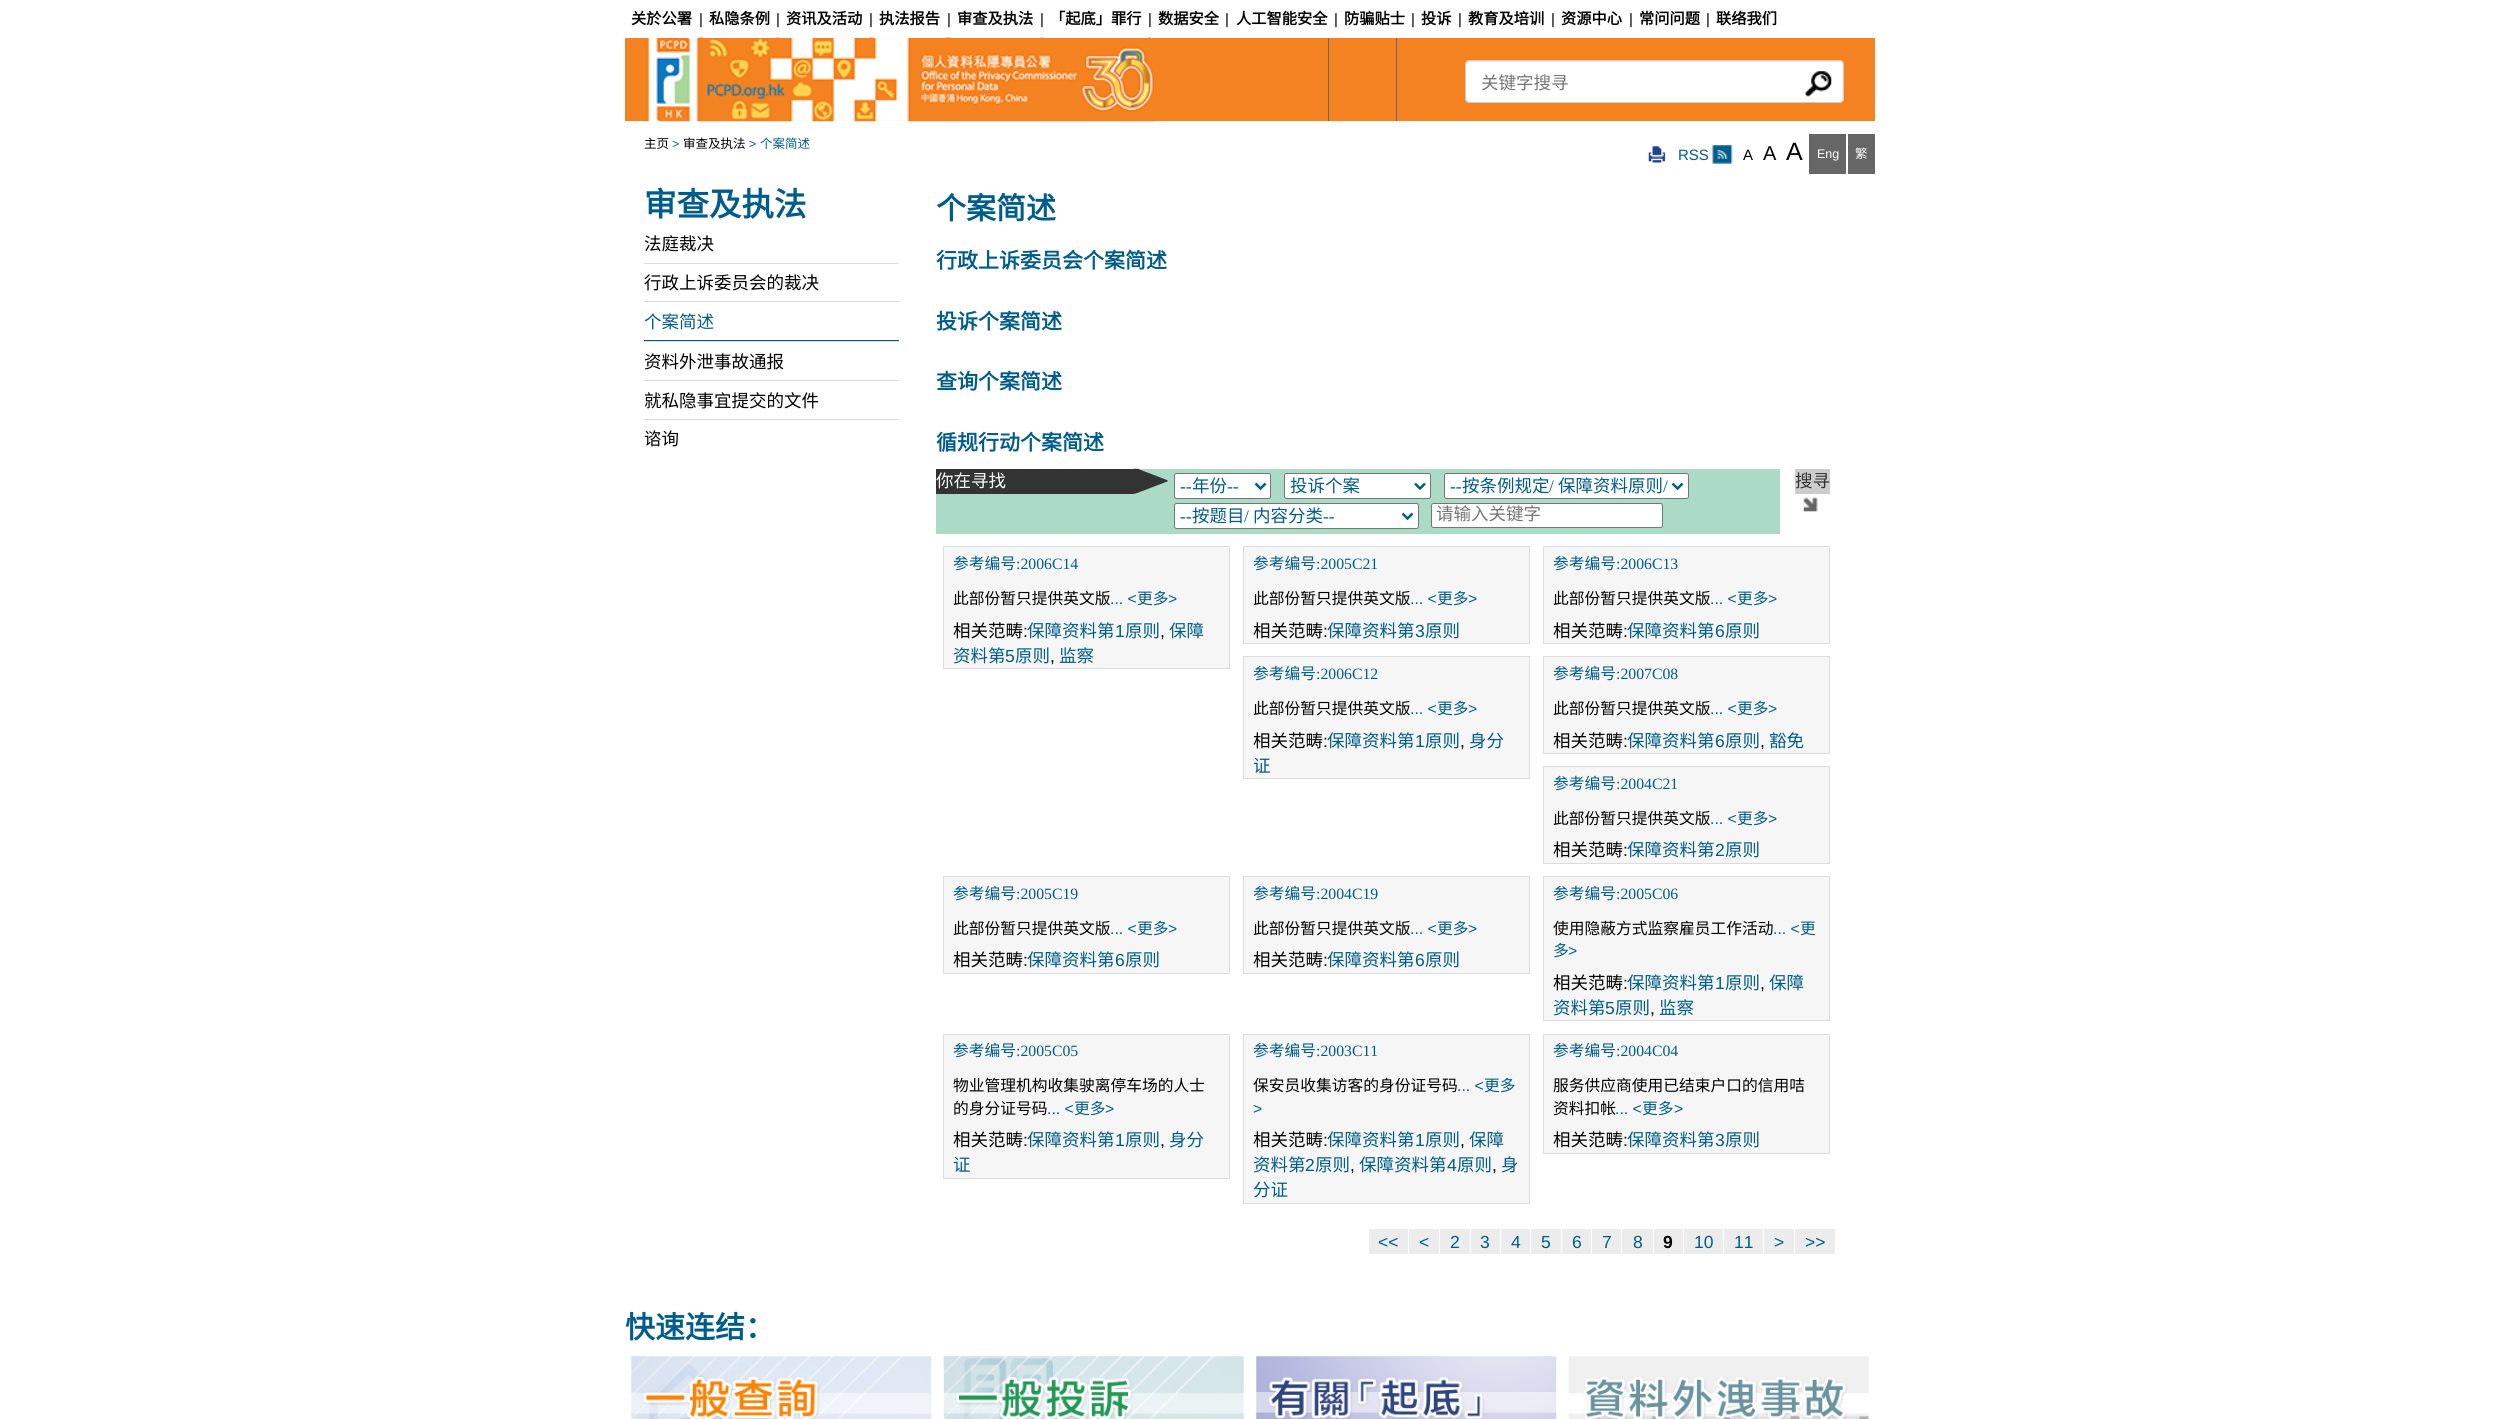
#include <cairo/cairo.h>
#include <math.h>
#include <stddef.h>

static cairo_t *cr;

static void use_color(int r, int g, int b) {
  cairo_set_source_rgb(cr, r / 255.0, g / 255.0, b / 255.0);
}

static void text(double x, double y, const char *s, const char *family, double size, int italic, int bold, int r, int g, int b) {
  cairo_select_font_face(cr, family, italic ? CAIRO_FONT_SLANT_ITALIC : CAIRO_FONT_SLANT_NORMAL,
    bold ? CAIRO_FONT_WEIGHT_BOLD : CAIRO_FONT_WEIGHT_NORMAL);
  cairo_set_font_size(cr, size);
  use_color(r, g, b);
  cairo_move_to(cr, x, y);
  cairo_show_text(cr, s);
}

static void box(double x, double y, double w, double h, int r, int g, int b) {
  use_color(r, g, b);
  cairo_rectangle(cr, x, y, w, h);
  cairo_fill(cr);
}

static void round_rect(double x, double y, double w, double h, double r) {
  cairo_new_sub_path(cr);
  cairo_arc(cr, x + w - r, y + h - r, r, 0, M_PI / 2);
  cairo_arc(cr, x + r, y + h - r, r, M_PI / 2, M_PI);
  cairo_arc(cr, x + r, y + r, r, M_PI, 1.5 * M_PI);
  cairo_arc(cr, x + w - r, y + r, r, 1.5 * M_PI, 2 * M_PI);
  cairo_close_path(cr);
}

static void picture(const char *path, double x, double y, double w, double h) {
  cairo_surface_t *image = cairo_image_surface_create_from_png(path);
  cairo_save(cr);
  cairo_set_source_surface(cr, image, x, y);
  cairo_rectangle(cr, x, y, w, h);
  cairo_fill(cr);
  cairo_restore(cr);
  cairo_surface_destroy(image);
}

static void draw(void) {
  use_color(255, 255, 255);
  cairo_paint(cr);
  box(625, 38, 1250, 83, 245, 130, 32);
  picture("img_01.png", 643, 37, 512, 85);
  box(643, 37, 56, 1, 255, 255, 255);
  box(703, 37, 73, 1, 255, 255, 255);
  box(780, 37, 89, 1, 255, 255, 255);
  box(873, 37, 73, 1, 255, 255, 255);
  box(951, 37, 89, 1, 255, 255, 255);
  box(1044, 37, 104, 1, 255, 255, 255);
  box(1151, 37, 4, 1, 255, 255, 255);
  box(1328, 38, 1, 83, 102, 102, 102);
  box(1396, 38, 1, 83, 102, 102, 102);
  use_color(255, 255, 255);
  round_rect(1465, 60, 379, 43, 5);
  cairo_fill(cr);
  use_color(236, 236, 236);
  cairo_new_path(cr);
  cairo_move_to(cr, 1470, 62);
  cairo_line_to(cr, 1839, 62);
  cairo_curve_to(cr, 1841, 62, 1842, 64, 1842, 66);
  cairo_line_to(cr, 1842, 100);
  cairo_curve_to(cr, 1843, 99, 1843, 98, 1843, 97);
  cairo_line_to(cr, 1843, 65);
  cairo_curve_to(cr, 1843, 63, 1841, 61, 1839, 61);
  cairo_line_to(cr, 1470, 61);
  cairo_curve_to(cr, 1468, 61, 1466, 63, 1466, 65);
  cairo_line_to(cr, 1466, 66);
  cairo_curve_to(cr, 1466, 64, 1468, 62, 1470, 62);
  cairo_close_path(cr);
  cairo_fill(cr);
  round_rect(1465.5, 60.5, 378, 42, 4.5);
  use_color(204, 204, 204);
  cairo_set_line_width(cr, 1);
  cairo_stroke(cr);
  picture("img_02.png", 1805, 71, 27, 26);
  picture("img_03.png", 1648, 146, 18, 17);
  picture("img_04.png", 1712, 145, 21, 19);
  box(1809, 134, 37, 40, 102, 102, 102);
  box(1848, 134, 27, 40, 102, 102, 102);
  box(644, 263, 255, 1, 221, 221, 221);
  box(644, 301, 255, 1, 221, 221, 221);
  box(644, 341, 255, 1, 221, 221, 221);
  box(644, 340, 255, 1, 0, 92, 138);
  box(644, 380, 255, 1, 221, 221, 221);
  box(644, 419, 255, 1, 221, 221, 221);
  box(936, 469, 844, 65, 171, 219, 199);
  picture("img_05.png", 1133, 468, 35, 26);
  box(936, 469, 198, 25, 51, 51, 51);
  use_color(255, 255, 255);
  round_rect(1174.5, 473.5, 96, 25, 2);
  cairo_fill_preserve(cr);
  use_color(118, 118, 118);
  cairo_stroke(cr);
  cairo_new_path(cr);
  cairo_move_to(cr, 1255.5, 483.5);
  cairo_line_to(cr, 1260.5, 488.5);
  cairo_line_to(cr, 1265.5, 483.5);
  use_color(0, 92, 138);
  cairo_set_line_width(cr, 2.5);
  cairo_stroke(cr);
  use_color(255, 255, 255);
  round_rect(1284.5, 473.5, 146, 25, 2);
  cairo_fill_preserve(cr);
  use_color(118, 118, 118);
  cairo_set_line_width(cr, 1);
  cairo_stroke(cr);
  cairo_new_path(cr);
  cairo_move_to(cr, 1415, 483.5);
  cairo_line_to(cr, 1420, 488.5);
  cairo_line_to(cr, 1425, 483.5);
  use_color(0, 92, 138);
  cairo_set_line_width(cr, 2.5);
  cairo_stroke(cr);
  use_color(255, 255, 255);
  round_rect(1444.5, 473.5, 244, 25, 2);
  cairo_fill_preserve(cr);
  use_color(118, 118, 118);
  cairo_set_line_width(cr, 1);
  cairo_stroke(cr);
  cairo_new_path(cr);
  cairo_move_to(cr, 1672.5, 483.5);
  cairo_line_to(cr, 1677.5, 488.5);
  cairo_line_to(cr, 1682.5, 483.5);
  use_color(0, 92, 138);
  cairo_set_line_width(cr, 2.5);
  cairo_stroke(cr);
  use_color(255, 255, 255);
  round_rect(1174.5, 503.5, 244, 25, 2);
  cairo_fill_preserve(cr);
  use_color(118, 118, 118);
  cairo_set_line_width(cr, 1);
  cairo_stroke(cr);
  cairo_new_path(cr);
  cairo_move_to(cr, 1402.5, 513.5);
  cairo_line_to(cr, 1407.5, 518.5);
  cairo_line_to(cr, 1412.5, 513.5);
  use_color(0, 92, 138);
  cairo_set_line_width(cr, 2.5);
  cairo_stroke(cr);
  use_color(255, 255, 255);
  round_rect(1431.5, 503.5, 231, 24, 2);
  cairo_fill_preserve(cr);
  use_color(118, 118, 118);
  cairo_set_line_width(cr, 1);
  cairo_stroke(cr);
  box(1795, 469, 35, 25, 204, 204, 204);
  picture("img_06.png", 1803, 497, 15, 15);
  use_color(246, 246, 246);
  cairo_rectangle(cr, 943.5, 546.5, 286, 122);
  cairo_fill_preserve(cr);
  use_color(220, 220, 220);
  cairo_stroke(cr);
  use_color(246, 246, 246);
  cairo_rectangle(cr, 1243.5, 546.5, 286, 97);
  cairo_fill_preserve(cr);
  use_color(220, 220, 220);
  cairo_stroke(cr);
  use_color(246, 246, 246);
  cairo_rectangle(cr, 1543.5, 546.5, 286, 97);
  cairo_fill_preserve(cr);
  use_color(220, 220, 220);
  cairo_stroke(cr);
  use_color(246, 246, 246);
  cairo_rectangle(cr, 1243.5, 656.5, 286, 122);
  cairo_fill_preserve(cr);
  use_color(220, 220, 220);
  cairo_stroke(cr);
  use_color(246, 246, 246);
  cairo_rectangle(cr, 1543.5, 656.5, 286, 97);
  cairo_fill_preserve(cr);
  use_color(220, 220, 220);
  cairo_stroke(cr);
  use_color(246, 246, 246);
  cairo_rectangle(cr, 1543.5, 766.5, 286, 97);
  cairo_fill_preserve(cr);
  use_color(220, 220, 220);
  cairo_stroke(cr);
  use_color(246, 246, 246);
  cairo_rectangle(cr, 943.5, 876.5, 286, 97);
  cairo_fill_preserve(cr);
  use_color(220, 220, 220);
  cairo_stroke(cr);
  use_color(246, 246, 246);
  cairo_rectangle(cr, 1243.5, 876.5, 286, 97);
  cairo_fill_preserve(cr);
  use_color(220, 220, 220);
  cairo_stroke(cr);
  use_color(246, 246, 246);
  cairo_rectangle(cr, 1543.5, 876.5, 286, 144);
  cairo_fill_preserve(cr);
  use_color(220, 220, 220);
  cairo_stroke(cr);
  use_color(246, 246, 246);
  cairo_rectangle(cr, 943.5, 1034.5, 286, 144);
  cairo_fill_preserve(cr);
  use_color(220, 220, 220);
  cairo_stroke(cr);
  use_color(246, 246, 246);
  cairo_rectangle(cr, 1243.5, 1034.5, 286, 169);
  cairo_fill_preserve(cr);
  use_color(220, 220, 220);
  cairo_stroke(cr);
  use_color(246, 246, 246);
  cairo_rectangle(cr, 1543.5, 1034.5, 286, 119);
  cairo_fill_preserve(cr);
  use_color(220, 220, 220);
  cairo_stroke(cr);
  box(1369, 1229, 39, 25, 236, 236, 236);
  box(1409, 1229, 30, 25, 236, 236, 236);
  box(1440, 1229, 30, 25, 236, 236, 236);
  box(1471, 1229, 29, 25, 236, 236, 236);
  box(1501, 1229, 29, 25, 236, 236, 236);
  box(1531, 1229, 30, 25, 236, 236, 236);
  box(1562, 1229, 29, 25, 236, 236, 236);
  box(1592, 1229, 61, 25, 236, 236, 236);
  box(1621, 1228, 1, 27, 255, 255, 255);
  box(1654, 1229, 29, 25, 236, 236, 236);
  box(1684, 1229, 39, 25, 236, 236, 236);
  box(1724, 1229, 39, 25, 236, 236, 236);
  box(1764, 1229, 30, 25, 236, 236, 236);
  box(1795, 1229, 40, 25, 236, 236, 236);
  picture("img_07.png", 631, 1356, 301, 63);
  picture("img_08.png", 943, 1356, 301, 63);
  picture("img_09.png", 1256, 1356, 301, 63);
  picture("img_10.png", 1568, 1356, 301, 63);
  text(631, 24, "关於公署", "Noto Sans CJK SC", 15.25, 0, 1, 0, 0, 0);
  text(699, 24, "|", "Liberation Sans", 15, 0, 0, 0, 0, 0);
  text(709, 24, "私隐条例", "Noto Sans CJK SC", 15.25, 0, 1, 0, 0, 0);
  text(776, 24, "|", "Liberation Sans", 15, 0, 0, 0, 0, 0);
  text(786, 24, "资讯及活动", "Noto Sans CJK SC", 15.25, 0, 1, 0, 0, 0);
  text(869, 24, "|", "Liberation Sans", 15, 0, 0, 0, 0, 0);
  text(879, 24, "执法报告", "Noto Sans CJK SC", 15.25, 0, 1, 0, 0, 0);
  text(947, 24, "|", "Liberation Sans", 15, 0, 0, 0, 0, 0);
  text(957, 24, "审查及执法", "Noto Sans CJK SC", 15.25, 0, 1, 0, 0, 0);
  text(1040, 24, "|", "Liberation Sans", 15, 0, 0, 0, 0, 0);
  text(1050, 24, "「起底」罪行", "Noto Sans CJK SC", 15.25, 0, 1, 0, 0, 0);
  text(1148, 24, "|", "Liberation Sans", 15, 0, 0, 0, 0, 0);
  text(1158, 24, "数据安全", "Noto Sans CJK SC", 15.25, 0, 1, 0, 0, 0);
  text(1225, 24, "|", "Liberation Sans", 15, 0, 0, 0, 0, 0);
  text(1236, 24, "人工智能安全", "Noto Sans CJK SC", 15.25, 0, 1, 0, 0, 0);
  text(1334, 24, "|", "Liberation Sans", 15, 0, 0, 0, 0, 0);
  text(1344, 24, "防骗贴士", "Noto Sans CJK SC", 15.25, 0, 1, 0, 0, 0);
  text(1411, 24, "|", "Liberation Sans", 15, 0, 0, 0, 0, 0);
  text(1421, 24, "投诉", "Noto Sans CJK SC", 15.25, 0, 1, 0, 0, 0);
  text(1458, 24, "|", "Liberation Sans", 15, 0, 0, 0, 0, 0);
  text(1468, 24, "教育及培训", "Noto Sans CJK SC", 15.25, 0, 1, 0, 0, 0);
  text(1551, 24, "|", "Liberation Sans", 15, 0, 0, 0, 0, 0);
  text(1561, 24, "资源中心", "Noto Sans CJK SC", 15.25, 0, 1, 0, 0, 0);
  text(1629, 24, "|", "Liberation Sans", 15, 0, 0, 0, 0, 0);
  text(1639, 24, "常问问题", "Noto Sans CJK SC", 15.25, 0, 1, 0, 0, 0);
  text(1706, 24, "|", "Liberation Sans", 15, 0, 0, 0, 0, 0);
  text(1716, 24, "联络我们", "Noto Sans CJK SC", 15.25, 0, 1, 0, 0, 0);
  text(1481, 89, "关键字搜寻", "Noto Sans CJK SC", 17.5, 0, 0, 118, 118, 118);
  text(644, 148, "主页", "Noto Sans CJK SC", 12.5, 0, 0, 0, 0, 0);
  text(672, 148, ">", "Liberation Sans", 12.5, 0, 0, 0, 92, 138);
  text(683, 148, "审查及执法", "Noto Sans CJK SC", 12.5, 0, 0, 0, 0, 0);
  text(749, 148, ">", "Liberation Sans", 12.5, 0, 0, 0, 92, 138);
  text(760, 148, "个案简述", "Noto Sans CJK SC", 12.5, 0, 0, 0, 92, 138);
  text(1678, 160, "RSS", "Liberation Sans", 15, 0, 0, 0, 92, 138);
  text(1743, 160, "A", "Liberation Sans", 15, 0, 0, 0, 0, 0);
  text(1763, 160, "A", "Liberation Sans", 20, 0, 0, 0, 0, 0);
  text(1786, 160, "A", "Liberation Sans", 25, 0, 0, 0, 0, 0);
  text(1817, 158, "Eng", "Liberation Sans", 12.5, 0, 0, 255, 255, 255);
  text(1855, 158, "繁", "Noto Sans CJK SC", 12.5, 0, 0, 255, 255, 255);
  text(644, 216, "审查及执法", "Noto Sans CJK SC", 32.5, 0, 1, 0, 92, 138);
  text(644, 250, "法庭裁决", "Noto Sans CJK SC", 17.5, 0, 0, 0, 0, 0);
  text(644, 289, "行政上诉委员会的裁决", "Noto Sans CJK SC", 17.5, 0, 0, 0, 0, 0);
  text(644, 328, "个案简述", "Noto Sans CJK SC", 17.5, 0, 0, 0, 92, 138);
  text(644, 368, "资料外泄事故通报", "Noto Sans CJK SC", 17.5, 0, 0, 0, 0, 0);
  text(644, 407, "就私隐事宜提交的文件", "Noto Sans CJK SC", 17.5, 0, 0, 0, 0, 0);
  text(644, 445, "谘询", "Noto Sans CJK SC", 17.5, 0, 0, 0, 0, 0);
  text(936, 219, "个案简述", "Noto Sans CJK SC", 30, 0, 1, 0, 92, 138);
  text(936, 268, "行政上诉委员会个案简述", "Noto Sans CJK SC", 21, 0, 1, 0, 92, 138);
  text(936, 329, "投诉个案简述", "Noto Sans CJK SC", 21, 0, 1, 0, 92, 138);
  text(936, 389, "查询个案简述", "Noto Sans CJK SC", 21, 0, 1, 0, 92, 138);
  text(936, 450, "循规行动个案简述", "Noto Sans CJK SC", 21, 0, 1, 0, 92, 138);
  text(936, 487, "你在寻找", "Noto Sans CJK SC", 17.5, 0, 0, 255, 255, 255);
  text(1180, 492, "--", "Liberation Serif", 17.5, 0, 0, 0, 92, 138);
  text(1192, 492, "年份", "Noto Sans CJK SC", 17.5, 0, 0, 0, 92, 138);
  text(1227, 492, "--", "Liberation Serif", 17.5, 0, 0, 0, 92, 138);
  text(1290, 492, "投诉个案", "Noto Sans CJK SC", 17.5, 0, 0, 0, 92, 138);
  text(1450, 492, "--", "Liberation Serif", 17.5, 0, 0, 0, 92, 138);
  text(1462, 492, "按条例规定", "Noto Sans CJK SC", 17.5, 0, 0, 0, 92, 138);
  text(1549, 492, "/", "Liberation Serif", 17.5, 0, 0, 0, 92, 138);
  text(1558, 492, "保障资料原则", "Noto Sans CJK SC", 17.5, 0, 0, 0, 92, 138);
  text(1663, 492, "/", "Liberation Serif", 17.5, 0, 0, 0, 92, 138);
  text(1180, 522, "--", "Liberation Serif", 17.5, 0, 0, 0, 92, 138);
  text(1192, 522, "按题目", "Noto Sans CJK SC", 17.5, 0, 0, 0, 92, 138);
  text(1244, 522, "/", "Liberation Serif", 17.5, 0, 0, 0, 92, 138);
  text(1253, 522, "内容分类", "Noto Sans CJK SC", 17.5, 0, 0, 0, 92, 138);
  text(1323, 522, "--", "Liberation Serif", 17.5, 0, 0, 0, 92, 138);
  text(1436, 520, "请输入关键字", "Noto Sans CJK SC", 17.5, 0, 0, 118, 118, 118);
  text(1795, 487, "搜寻", "Noto Sans CJK SC", 17.5, 0, 0, 51, 51, 51);
  text(953, 569, "参考编号", "Noto Sans CJK SC", 15.75, 0, 0, 0, 92, 138);
  text(1016, 569, ":2006C14", "Liberation Serif", 15.75, 0, 0, 0, 92, 138);
  text(953, 604, "此部份暂只提供英文版", "Noto Sans CJK SC", 15.75, 0, 0, 0, 0, 0);
  text(1110, 604, "... <", "Liberation Sans", 15.75, 0, 0, 0, 92, 138);
  text(1137, 604, "更多", "Noto Sans CJK SC", 15.75, 0, 0, 0, 92, 138);
  text(1168, 604, ">", "Liberation Sans", 15.75, 0, 0, 0, 92, 138);
  text(953, 637, "相关范畴", "Noto Sans CJK SC", 17.5, 0, 0, 0, 0, 0);
  text(1023, 637, ":", "Liberation Sans", 17.5, 0, 0, 0, 0, 0);
  text(1027, 637, "保障资料第", "Noto Sans CJK SC", 17.5, 0, 0, 0, 92, 138);
  text(1115, 637, "1", "Liberation Sans", 17.5, 0, 0, 0, 92, 138);
  text(1125, 637, "原则", "Noto Sans CJK SC", 17.5, 0, 0, 0, 92, 138);
  text(1169, 637, "保障", "Noto Sans CJK SC", 17.5, 0, 0, 0, 92, 138);
  text(1160, 637, ",", "Liberation Sans", 17.5, 0, 0, 0, 0, 0);
  text(953, 662, "资料第", "Noto Sans CJK SC", 17.5, 0, 0, 0, 92, 138);
  text(1005, 662, "5", "Liberation Sans", 17.5, 0, 0, 0, 92, 138);
  text(1015, 662, "原则", "Noto Sans CJK SC", 17.5, 0, 0, 0, 92, 138);
  text(1050, 662, ",", "Liberation Sans", 17.5, 0, 0, 0, 0, 0);
  text(1059, 662, "监察", "Noto Sans CJK SC", 17.5, 0, 0, 0, 92, 138);
  text(1253, 569, "参考编号", "Noto Sans CJK SC", 15.75, 0, 0, 0, 92, 138);
  text(1316, 569, ":2005C21", "Liberation Serif", 15.75, 0, 0, 0, 92, 138);
  text(1253, 604, "此部份暂只提供英文版", "Noto Sans CJK SC", 15.75, 0, 0, 0, 0, 0);
  text(1410, 604, "... <", "Liberation Sans", 15.75, 0, 0, 0, 92, 138);
  text(1437, 604, "更多", "Noto Sans CJK SC", 15.75, 0, 0, 0, 92, 138);
  text(1468, 604, ">", "Liberation Sans", 15.75, 0, 0, 0, 92, 138);
  text(1253, 637, "相关范畴", "Noto Sans CJK SC", 17.5, 0, 0, 0, 0, 0);
  text(1323, 637, ":", "Liberation Sans", 17.5, 0, 0, 0, 0, 0);
  text(1327, 637, "保障资料第", "Noto Sans CJK SC", 17.5, 0, 0, 0, 92, 138);
  text(1415, 637, "3", "Liberation Sans", 17.5, 0, 0, 0, 92, 138);
  text(1425, 637, "原则", "Noto Sans CJK SC", 17.5, 0, 0, 0, 92, 138);
  text(1553, 569, "参考编号", "Noto Sans CJK SC", 15.75, 0, 0, 0, 92, 138);
  text(1616, 569, ":2006C13", "Liberation Serif", 15.75, 0, 0, 0, 92, 138);
  text(1553, 604, "此部份暂只提供英文版", "Noto Sans CJK SC", 15.75, 0, 0, 0, 0, 0);
  text(1710, 604, "... <", "Liberation Sans", 15.75, 0, 0, 0, 92, 138);
  text(1737, 604, "更多", "Noto Sans CJK SC", 15.75, 0, 0, 0, 92, 138);
  text(1768, 604, ">", "Liberation Sans", 15.75, 0, 0, 0, 92, 138);
  text(1553, 637, "相关范畴", "Noto Sans CJK SC", 17.5, 0, 0, 0, 0, 0);
  text(1623, 637, ":", "Liberation Sans", 17.5, 0, 0, 0, 0, 0);
  text(1627, 637, "保障资料第", "Noto Sans CJK SC", 17.5, 0, 0, 0, 92, 138);
  text(1715, 637, "6", "Liberation Sans", 17.5, 0, 0, 0, 92, 138);
  text(1725, 637, "原则", "Noto Sans CJK SC", 17.5, 0, 0, 0, 92, 138);
  text(1253, 679, "参考编号", "Noto Sans CJK SC", 15.75, 0, 0, 0, 92, 138);
  text(1316, 679, ":2006C12", "Liberation Serif", 15.75, 0, 0, 0, 92, 138);
  text(1253, 714, "此部份暂只提供英文版", "Noto Sans CJK SC", 15.75, 0, 0, 0, 0, 0);
  text(1410, 714, "... <", "Liberation Sans", 15.75, 0, 0, 0, 92, 138);
  text(1437, 714, "更多", "Noto Sans CJK SC", 15.75, 0, 0, 0, 92, 138);
  text(1468, 714, ">", "Liberation Sans", 15.75, 0, 0, 0, 92, 138);
  text(1253, 747, "相关范畴", "Noto Sans CJK SC", 17.5, 0, 0, 0, 0, 0);
  text(1323, 747, ":", "Liberation Sans", 17.5, 0, 0, 0, 0, 0);
  text(1327, 747, "保障资料第", "Noto Sans CJK SC", 17.5, 0, 0, 0, 92, 138);
  text(1415, 747, "1", "Liberation Sans", 17.5, 0, 0, 0, 92, 138);
  text(1425, 747, "原则", "Noto Sans CJK SC", 17.5, 0, 0, 0, 92, 138);
  text(1469, 747, "身分", "Noto Sans CJK SC", 17.5, 0, 0, 0, 92, 138);
  text(1460, 747, ",", "Liberation Sans", 17.5, 0, 0, 0, 0, 0);
  text(1253, 772, "证", "Noto Sans CJK SC", 17.5, 0, 0, 0, 92, 138);
  text(1553, 679, "参考编号", "Noto Sans CJK SC", 15.75, 0, 0, 0, 92, 138);
  text(1616, 679, ":2007C08", "Liberation Serif", 15.75, 0, 0, 0, 92, 138);
  text(1553, 714, "此部份暂只提供英文版", "Noto Sans CJK SC", 15.75, 0, 0, 0, 0, 0);
  text(1710, 714, "... <", "Liberation Sans", 15.75, 0, 0, 0, 92, 138);
  text(1737, 714, "更多", "Noto Sans CJK SC", 15.75, 0, 0, 0, 92, 138);
  text(1768, 714, ">", "Liberation Sans", 15.75, 0, 0, 0, 92, 138);
  text(1553, 747, "相关范畴", "Noto Sans CJK SC", 17.5, 0, 0, 0, 0, 0);
  text(1623, 747, ":", "Liberation Sans", 17.5, 0, 0, 0, 0, 0);
  text(1627, 747, "保障资料第", "Noto Sans CJK SC", 17.5, 0, 0, 0, 92, 138);
  text(1715, 747, "6", "Liberation Sans", 17.5, 0, 0, 0, 92, 138);
  text(1725, 747, "原则", "Noto Sans CJK SC", 17.5, 0, 0, 0, 92, 138);
  text(1769, 747, "豁免", "Noto Sans CJK SC", 17.5, 0, 0, 0, 92, 138);
  text(1760, 747, ",", "Liberation Sans", 17.5, 0, 0, 0, 0, 0);
  text(1553, 789, "参考编号", "Noto Sans CJK SC", 15.75, 0, 0, 0, 92, 138);
  text(1616, 789, ":2004C21", "Liberation Serif", 15.75, 0, 0, 0, 92, 138);
  text(1553, 824, "此部份暂只提供英文版", "Noto Sans CJK SC", 15.75, 0, 0, 0, 0, 0);
  text(1710, 824, "... <", "Liberation Sans", 15.75, 0, 0, 0, 92, 138);
  text(1737, 824, "更多", "Noto Sans CJK SC", 15.75, 0, 0, 0, 92, 138);
  text(1768, 824, ">", "Liberation Sans", 15.75, 0, 0, 0, 92, 138);
  text(1553, 856, "相关范畴", "Noto Sans CJK SC", 17.5, 0, 0, 0, 0, 0);
  text(1623, 856, ":", "Liberation Sans", 17.5, 0, 0, 0, 0, 0);
  text(1627, 856, "保障资料第", "Noto Sans CJK SC", 17.5, 0, 0, 0, 92, 138);
  text(1715, 856, "2", "Liberation Sans", 17.5, 0, 0, 0, 92, 138);
  text(1725, 856, "原则", "Noto Sans CJK SC", 17.5, 0, 0, 0, 92, 138);
  text(953, 899, "参考编号", "Noto Sans CJK SC", 15.75, 0, 0, 0, 92, 138);
  text(1016, 899, ":2005C19", "Liberation Serif", 15.75, 0, 0, 0, 92, 138);
  text(953, 934, "此部份暂只提供英文版", "Noto Sans CJK SC", 15.75, 0, 0, 0, 0, 0);
  text(1110, 934, "... <", "Liberation Sans", 15.75, 0, 0, 0, 92, 138);
  text(1137, 934, "更多", "Noto Sans CJK SC", 15.75, 0, 0, 0, 92, 138);
  text(1168, 934, ">", "Liberation Sans", 15.75, 0, 0, 0, 92, 138);
  text(953, 966, "相关范畴", "Noto Sans CJK SC", 17.5, 0, 0, 0, 0, 0);
  text(1023, 966, ":", "Liberation Sans", 17.5, 0, 0, 0, 0, 0);
  text(1027, 966, "保障资料第", "Noto Sans CJK SC", 17.5, 0, 0, 0, 92, 138);
  text(1115, 966, "6", "Liberation Sans", 17.5, 0, 0, 0, 92, 138);
  text(1125, 966, "原则", "Noto Sans CJK SC", 17.5, 0, 0, 0, 92, 138);
  text(1253, 899, "参考编号", "Noto Sans CJK SC", 15.75, 0, 0, 0, 92, 138);
  text(1316, 899, ":2004C19", "Liberation Serif", 15.75, 0, 0, 0, 92, 138);
  text(1253, 934, "此部份暂只提供英文版", "Noto Sans CJK SC", 15.75, 0, 0, 0, 0, 0);
  text(1410, 934, "... <", "Liberation Sans", 15.75, 0, 0, 0, 92, 138);
  text(1437, 934, "更多", "Noto Sans CJK SC", 15.75, 0, 0, 0, 92, 138);
  text(1468, 934, ">", "Liberation Sans", 15.75, 0, 0, 0, 92, 138);
  text(1253, 966, "相关范畴", "Noto Sans CJK SC", 17.5, 0, 0, 0, 0, 0);
  text(1323, 966, ":", "Liberation Sans", 17.5, 0, 0, 0, 0, 0);
  text(1327, 966, "保障资料第", "Noto Sans CJK SC", 17.5, 0, 0, 0, 92, 138);
  text(1415, 966, "6", "Liberation Sans", 17.5, 0, 0, 0, 92, 138);
  text(1425, 966, "原则", "Noto Sans CJK SC", 17.5, 0, 0, 0, 92, 138);
  text(1553, 899, "参考编号", "Noto Sans CJK SC", 15.75, 0, 0, 0, 92, 138);
  text(1616, 899, ":2005C06", "Liberation Serif", 15.75, 0, 0, 0, 92, 138);
  text(1553, 934, "使用隐蔽方式监察雇员工作活动", "Noto Sans CJK SC", 15.75, 0, 0, 0, 0, 0);
  text(1773, 934, "... <", "Liberation Sans", 15.75, 0, 0, 0, 92, 138);
  text(1800, 934, "更", "Noto Sans CJK SC", 15.75, 0, 0, 0, 92, 138);
  text(1553, 956, "多", "Noto Sans CJK SC", 15.75, 0, 0, 0, 92, 138);
  text(1568, 956, ">", "Liberation Sans", 15.75, 0, 0, 0, 92, 138);
  text(1553, 989, "相关范畴", "Noto Sans CJK SC", 17.5, 0, 0, 0, 0, 0);
  text(1623, 989, ":", "Liberation Sans", 17.5, 0, 0, 0, 0, 0);
  text(1627, 989, "保障资料第", "Noto Sans CJK SC", 17.5, 0, 0, 0, 92, 138);
  text(1715, 989, "1", "Liberation Sans", 17.5, 0, 0, 0, 92, 138);
  text(1725, 989, "原则", "Noto Sans CJK SC", 17.5, 0, 0, 0, 92, 138);
  text(1769, 989, "保障", "Noto Sans CJK SC", 17.5, 0, 0, 0, 92, 138);
  text(1760, 989, ",", "Liberation Sans", 17.5, 0, 0, 0, 0, 0);
  text(1553, 1014, "资料第", "Noto Sans CJK SC", 17.5, 0, 0, 0, 92, 138);
  text(1605, 1014, "5", "Liberation Sans", 17.5, 0, 0, 0, 92, 138);
  text(1615, 1014, "原则", "Noto Sans CJK SC", 17.5, 0, 0, 0, 92, 138);
  text(1650, 1014, ",", "Liberation Sans", 17.5, 0, 0, 0, 0, 0);
  text(1659, 1014, "监察", "Noto Sans CJK SC", 17.5, 0, 0, 0, 92, 138);
  text(953, 1056, "参考编号", "Noto Sans CJK SC", 15.75, 0, 0, 0, 92, 138);
  text(1016, 1056, ":2005C05", "Liberation Serif", 15.75, 0, 0, 0, 92, 138);
  text(953, 1091, "物业管理机构收集驶离停车场的人士", "Noto Sans CJK SC", 15.75, 0, 0, 0, 0, 0);
  text(953, 1114, "的身分证号码", "Noto Sans CJK SC", 15.75, 0, 0, 0, 0, 0);
  text(1047, 1114, "... <", "Liberation Sans", 15.75, 0, 0, 0, 92, 138);
  text(1074, 1114, "更多", "Noto Sans CJK SC", 15.75, 0, 0, 0, 92, 138);
  text(1105, 1114, ">", "Liberation Sans", 15.75, 0, 0, 0, 92, 138);
  text(953, 1146, "相关范畴", "Noto Sans CJK SC", 17.5, 0, 0, 0, 0, 0);
  text(1023, 1146, ":", "Liberation Sans", 17.5, 0, 0, 0, 0, 0);
  text(1027, 1146, "保障资料第", "Noto Sans CJK SC", 17.5, 0, 0, 0, 92, 138);
  text(1115, 1146, "1", "Liberation Sans", 17.5, 0, 0, 0, 92, 138);
  text(1125, 1146, "原则", "Noto Sans CJK SC", 17.5, 0, 0, 0, 92, 138);
  text(1169, 1146, "身分", "Noto Sans CJK SC", 17.5, 0, 0, 0, 92, 138);
  text(1160, 1146, ",", "Liberation Sans", 17.5, 0, 0, 0, 0, 0);
  text(953, 1171, "证", "Noto Sans CJK SC", 17.5, 0, 0, 0, 92, 138);
  text(1253, 1056, "参考编号", "Noto Sans CJK SC", 15.75, 0, 0, 0, 92, 138);
  text(1316, 1056, ":2003C11", "Liberation Serif", 15.75, 0, 0, 0, 92, 138);
  text(1253, 1091, "保安员收集访客的身份证号码", "Noto Sans CJK SC", 15.75, 0, 0, 0, 0, 0);
  text(1457, 1091, "... <", "Liberation Sans", 15.75, 0, 0, 0, 92, 138);
  text(1484, 1091, "更多", "Noto Sans CJK SC", 15.75, 0, 0, 0, 92, 138);
  text(1253, 1114, ">", "Liberation Sans", 15.75, 0, 0, 0, 92, 138);
  text(1253, 1146, "相关范畴", "Noto Sans CJK SC", 17.5, 0, 0, 0, 0, 0);
  text(1323, 1146, ":", "Liberation Sans", 17.5, 0, 0, 0, 0, 0);
  text(1327, 1146, "保障资料第", "Noto Sans CJK SC", 17.5, 0, 0, 0, 92, 138);
  text(1415, 1146, "1", "Liberation Sans", 17.5, 0, 0, 0, 92, 138);
  text(1425, 1146, "原则", "Noto Sans CJK SC", 17.5, 0, 0, 0, 92, 138);
  text(1469, 1146, "保障", "Noto Sans CJK SC", 17.5, 0, 0, 0, 92, 138);
  text(1460, 1146, ",", "Liberation Sans", 17.5, 0, 0, 0, 0, 0);
  text(1253, 1171, "资料第", "Noto Sans CJK SC", 17.5, 0, 0, 0, 92, 138);
  text(1305, 1171, "2", "Liberation Sans", 17.5, 0, 0, 0, 92, 138);
  text(1315, 1171, "原则", "Noto Sans CJK SC", 17.5, 0, 0, 0, 92, 138);
  text(1359, 1171, "保障资料第", "Noto Sans CJK SC", 17.5, 0, 0, 0, 92, 138);
  text(1447, 1171, "4", "Liberation Sans", 17.5, 0, 0, 0, 92, 138);
  text(1457, 1171, "原则", "Noto Sans CJK SC", 17.5, 0, 0, 0, 92, 138);
  text(1501, 1171, "身", "Noto Sans CJK SC", 17.5, 0, 0, 0, 92, 138);
  text(1350, 1171, ",", "Liberation Sans", 17.5, 0, 0, 0, 0, 0);
  text(1492, 1171, ",", "Liberation Sans", 17.5, 0, 0, 0, 0, 0);
  text(1253, 1196, "分证", "Noto Sans CJK SC", 17.5, 0, 0, 0, 92, 138);
  text(1553, 1056, "参考编号", "Noto Sans CJK SC", 15.75, 0, 0, 0, 92, 138);
  text(1616, 1056, ":2004C04", "Liberation Serif", 15.75, 0, 0, 0, 92, 138);
  text(1553, 1091, "服务供应商使用已结束户口的信用咭", "Noto Sans CJK SC", 15.75, 0, 0, 0, 0, 0);
  text(1553, 1114, "资料扣帐", "Noto Sans CJK SC", 15.75, 0, 0, 0, 0, 0);
  text(1615, 1114, "... <", "Liberation Sans", 15.75, 0, 0, 0, 92, 138);
  text(1642, 1114, "更多", "Noto Sans CJK SC", 15.75, 0, 0, 0, 92, 138);
  text(1674, 1114, ">", "Liberation Sans", 15.75, 0, 0, 0, 92, 138);
  text(1553, 1146, "相关范畴", "Noto Sans CJK SC", 17.5, 0, 0, 0, 0, 0);
  text(1623, 1146, ":", "Liberation Sans", 17.5, 0, 0, 0, 0, 0);
  text(1627, 1146, "保障资料第", "Noto Sans CJK SC", 17.5, 0, 0, 0, 92, 138);
  text(1715, 1146, "3", "Liberation Sans", 17.5, 0, 0, 0, 92, 138);
  text(1725, 1146, "原则", "Noto Sans CJK SC", 17.5, 0, 0, 0, 92, 138);
  text(1378, 1248, "<<", "Liberation Sans", 17.5, 0, 0, 0, 92, 138);
  text(1419, 1248, "<", "Liberation Sans", 17.5, 0, 0, 0, 92, 138);
  text(1450, 1248, "2", "Liberation Sans", 17.5, 0, 0, 0, 92, 138);
  text(1480, 1248, "3", "Liberation Sans", 17.5, 0, 0, 0, 92, 138);
  text(1511, 1248, "4", "Liberation Sans", 17.5, 0, 0, 0, 92, 138);
  text(1541, 1248, "5", "Liberation Sans", 17.5, 0, 0, 0, 92, 138);
  text(1572, 1248, "6", "Liberation Sans", 17.5, 0, 0, 0, 92, 138);
  text(1602, 1248, "7", "Liberation Sans", 17.5, 0, 0, 0, 92, 138);
  text(1633, 1248, "8", "Liberation Sans", 17.5, 0, 0, 0, 92, 138);
  text(1663, 1248, "9", "Liberation Sans", 17.5, 0, 1, 0, 0, 0);
  text(1694, 1248, "10", "Liberation Sans", 17.5, 0, 0, 0, 92, 138);
  text(1734, 1248, "11", "Liberation Sans", 17.5, 0, 0, 0, 92, 138);
  text(1774, 1248, ">", "Liberation Sans", 17.5, 0, 0, 0, 92, 138);
  text(1805, 1248, ">>", "Liberation Sans", 17.5, 0, 0, 0, 92, 138);
  text(625, 1338, "快速连结：", "Noto Sans CJK SC", 30, 0, 1, 0, 92, 138);
}

int main(void) {
  cairo_surface_t *surface = cairo_image_surface_create(CAIRO_FORMAT_RGB24, 2499, 1419);
  cr = cairo_create(surface);
  cairo_font_options_t *options = cairo_font_options_create();
  cairo_font_options_set_hint_metrics(options, CAIRO_HINT_METRICS_OFF);
  cairo_font_options_set_hint_style(options, CAIRO_HINT_STYLE_NONE);
  cairo_set_font_options(cr, options);
  cairo_set_miter_limit(cr, 4);
  draw();
  cairo_surface_write_to_png(surface, "out.png");
  cairo_font_options_destroy(options);
  cairo_destroy(cr);
  cairo_surface_destroy(surface);
  return 0;
}
